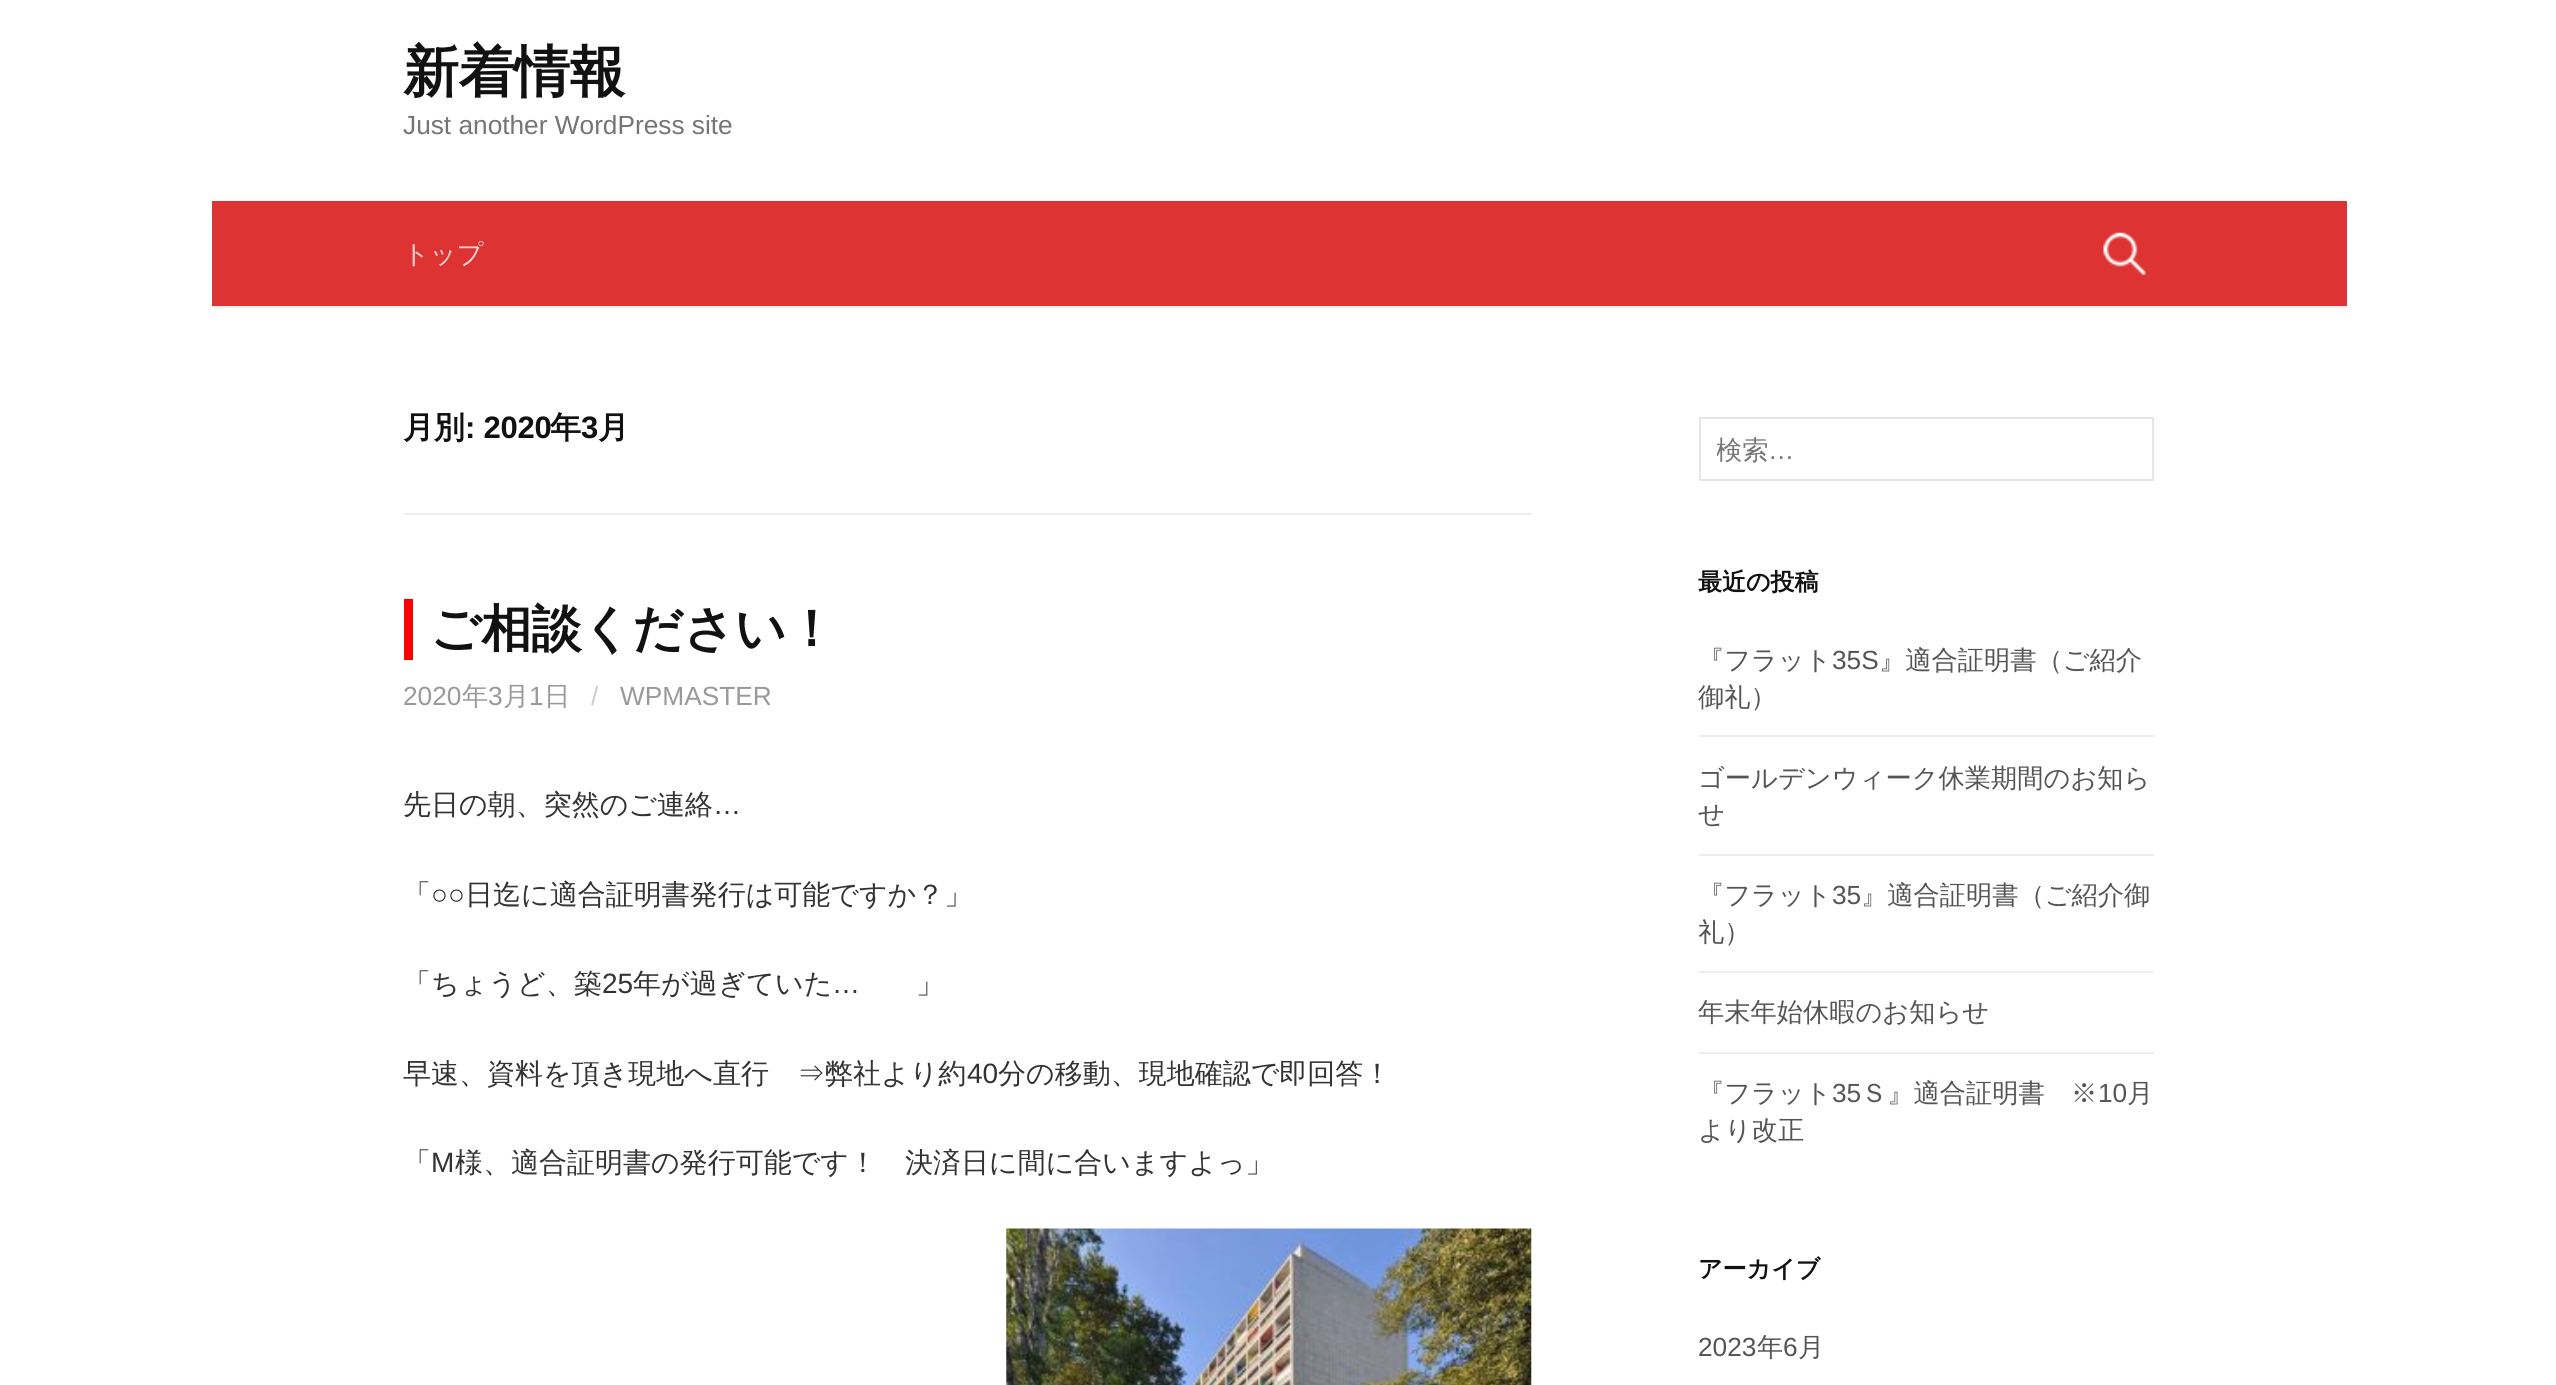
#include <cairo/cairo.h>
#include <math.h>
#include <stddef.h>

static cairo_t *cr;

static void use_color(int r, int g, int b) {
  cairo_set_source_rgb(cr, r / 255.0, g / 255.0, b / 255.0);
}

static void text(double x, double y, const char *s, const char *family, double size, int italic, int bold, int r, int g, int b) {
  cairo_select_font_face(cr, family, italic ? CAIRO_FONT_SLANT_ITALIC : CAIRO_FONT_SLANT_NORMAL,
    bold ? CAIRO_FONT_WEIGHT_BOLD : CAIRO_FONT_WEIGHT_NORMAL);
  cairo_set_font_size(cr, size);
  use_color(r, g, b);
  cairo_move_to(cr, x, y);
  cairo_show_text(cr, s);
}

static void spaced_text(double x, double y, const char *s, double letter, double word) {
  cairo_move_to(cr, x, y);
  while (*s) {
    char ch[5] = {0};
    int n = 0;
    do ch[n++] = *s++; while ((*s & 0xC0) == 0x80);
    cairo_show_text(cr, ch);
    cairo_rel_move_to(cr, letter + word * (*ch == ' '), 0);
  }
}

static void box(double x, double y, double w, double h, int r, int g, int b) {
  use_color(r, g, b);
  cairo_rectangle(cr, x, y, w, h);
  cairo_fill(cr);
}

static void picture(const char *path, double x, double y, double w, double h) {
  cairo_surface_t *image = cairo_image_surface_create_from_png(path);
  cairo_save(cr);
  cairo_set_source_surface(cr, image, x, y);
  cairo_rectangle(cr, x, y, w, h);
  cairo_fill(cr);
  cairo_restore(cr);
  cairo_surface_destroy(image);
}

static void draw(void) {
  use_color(255, 255, 255);
  cairo_paint(cr);
  box(212, 306, 2135, 2, 238, 238, 238);
  box(212, 201, 2135, 105, 221, 51, 51);
  picture("img_01.png", 2103, 232, 43, 43);
  box(404, 513, 1127, 2, 238, 238, 238);
  box(404, 599, 9, 61, 255, 0, 0);
  picture("img_02.png", 1006, 1228, 526, 157);
  cairo_rectangle(cr, 1700, 418, 453, 62);
  use_color(230, 230, 230);
  cairo_stroke(cr);
  box(1699, 735, 455, 2, 238, 238, 238);
  box(1699, 854, 455, 2, 238, 238, 238);
  box(1699, 971, 455, 2, 238, 238, 238);
  box(1699, 1052, 455, 2, 238, 238, 238);
  cairo_select_font_face(cr, "WenQuanYi Zen Hei", CAIRO_FONT_SLANT_NORMAL, CAIRO_FONT_WEIGHT_BOLD);
  cairo_set_font_size(cr, 56);
  use_color(17, 17, 17);
  spaced_text(403, 91, "新着情報", -0.5, 0);
  text(403, 134, "Just another WordPress site", "Liberation Sans", 26.25, 0, 0, 117, 117, 117);
  text(403, 263, "トップ", "WenQuanYi Zen Hei Medium", 26.25, 0, 0, 248, 214, 214);
  cairo_select_font_face(cr, "WenQuanYi Zen Hei", CAIRO_FONT_SLANT_NORMAL, CAIRO_FONT_WEIGHT_BOLD);
  cairo_set_font_size(cr, 31);
  use_color(17, 17, 17);
  spaced_text(403, 438, "月別", -0.25, 0);
  cairo_select_font_face(cr, "Liberation Sans", CAIRO_FONT_SLANT_NORMAL, CAIRO_FONT_WEIGHT_BOLD);
  spaced_text(465, 438, ": 2020", -0.25, 0);
  cairo_select_font_face(cr, "WenQuanYi Zen Hei", CAIRO_FONT_SLANT_NORMAL, CAIRO_FONT_WEIGHT_BOLD);
  spaced_text(550, 438, "年", -0.25, 0);
  cairo_select_font_face(cr, "Liberation Sans", CAIRO_FONT_SLANT_NORMAL, CAIRO_FONT_WEIGHT_BOLD);
  spaced_text(581, 438, "3", -0.25, 0);
  cairo_select_font_face(cr, "WenQuanYi Zen Hei", CAIRO_FONT_SLANT_NORMAL, CAIRO_FONT_WEIGHT_BOLD);
  spaced_text(598, 438, "月", -0.25, 0);
  cairo_set_font_size(cr, 50.5);
  spaced_text(430, 646, "ご相談ください！", -0.5, 0);
  text(403, 705, "2020", "Liberation Sans", 26.25, 0, 0, 153, 153, 153);
  text(462, 705, "年", "WenQuanYi Zen Hei Medium", 26.25, 0, 0, 153, 153, 153);
  text(488, 705, "3", "Liberation Sans", 26.25, 0, 0, 153, 153, 153);
  text(503, 705, "月", "WenQuanYi Zen Hei Medium", 26.25, 0, 0, 153, 153, 153);
  text(529, 705, "1", "Liberation Sans", 26.25, 0, 0, 153, 153, 153);
  text(544, 705, "日", "WenQuanYi Zen Hei Medium", 26.25, 0, 0, 153, 153, 153);
  text(591, 705, "/", "Liberation Sans", 26.25, 0, 0, 204, 204, 204);
  text(620, 705, "WPMASTER", "Liberation Sans", 26.25, 0, 0, 153, 153, 153);
  text(403, 814, "先日の朝、突然のご連絡", "WenQuanYi Zen Hei Medium", 28, 0, 0, 51, 51, 51);
  text(713, 814, "…", "Liberation Sans", 28, 0, 0, 51, 51, 51);
  text(403, 904, "「", "WenQuanYi Zen Hei Medium", 28, 0, 0, 51, 51, 51);
  text(431, 904, "○○", "Liberation Sans", 28, 0, 0, 51, 51, 51);
  text(465, 904, "日迄に適合証明書発行は可能ですか？」", "WenQuanYi Zen Hei Medium", 28, 0, 0, 51, 51, 51);
  text(403, 993, "「ちょうど、築", "WenQuanYi Zen Hei Medium", 28, 0, 0, 51, 51, 51);
  text(602, 993, "25", "Liberation Sans", 28, 0, 0, 51, 51, 51);
  text(633, 993, "年が過ぎていた", "WenQuanYi Zen Hei Medium", 28, 0, 0, 51, 51, 51);
  text(832, 993, "…", "Liberation Sans", 28, 0, 0, 51, 51, 51);
  text(916, 993, "」", "WenQuanYi Zen Hei Medium", 28, 0, 0, 51, 51, 51);
  text(403, 1083, "早速、資料を頂き現地へ直行　⇒弊社より約", "WenQuanYi Zen Hei Medium", 28, 0, 0, 51, 51, 51);
  text(967, 1083, "40", "Liberation Sans", 28, 0, 0, 51, 51, 51);
  text(998, 1083, "分の移動、現地確認で即回答！", "WenQuanYi Zen Hei Medium", 28, 0, 0, 51, 51, 51);
  text(403, 1172, "「", "WenQuanYi Zen Hei Medium", 28, 0, 0, 51, 51, 51);
  text(431, 1172, "M", "Liberation Sans", 28, 0, 0, 51, 51, 51);
  text(455, 1172, "様、適合証明書の発行可能です！　決済日に間に合いますよっ」", "WenQuanYi Zen Hei Medium", 28, 0, 0, 51, 51, 51);
  cairo_save(cr);
  cairo_rectangle(cr, 1717, 434, 413, 33);
  cairo_clip(cr);
  text(1716, 459, "検索", "WenQuanYi Zen Hei Medium", 26.25, 0, 0, 117, 117, 117);
  cairo_restore(cr);
  text(1768, 459, "…", "Liberation Sans", 26.25, 0, 0, 117, 117, 117);
  text(1698, 590, "最近の投稿", "WenQuanYi Zen Hei", 24, 0, 1, 17, 17, 17);
  text(1698, 669, "『フラット", "WenQuanYi Zen Hei Medium", 26.25, 0, 0, 85, 85, 85);
  text(1832, 669, "35S", "Liberation Sans", 26.25, 0, 0, 85, 85, 85);
  text(1879, 669, "』適合証明書（ご紹介", "WenQuanYi Zen Hei Medium", 26.25, 0, 0, 85, 85, 85);
  text(1698, 706, "御礼）", "WenQuanYi Zen Hei Medium", 26.25, 0, 0, 85, 85, 85);
  text(1698, 787, "ゴールデンウィーク休業期間のお知ら", "WenQuanYi Zen Hei Medium", 26.25, 0, 0, 85, 85, 85);
  text(1698, 823, "せ", "WenQuanYi Zen Hei Medium", 26.25, 0, 0, 85, 85, 85);
  text(1698, 904, "『フラット", "WenQuanYi Zen Hei Medium", 26.25, 0, 0, 85, 85, 85);
  text(1832, 904, "35", "Liberation Sans", 26.25, 0, 0, 85, 85, 85);
  text(1861, 904, "』適合証明書（ご紹介御", "WenQuanYi Zen Hei Medium", 26.25, 0, 0, 85, 85, 85);
  text(1698, 941, "礼）", "WenQuanYi Zen Hei Medium", 26.25, 0, 0, 85, 85, 85);
  text(1698, 1021, "年末年始休暇のお知らせ", "WenQuanYi Zen Hei Medium", 26.25, 0, 0, 85, 85, 85);
  text(1698, 1102, "『フラット", "WenQuanYi Zen Hei Medium", 26.25, 0, 0, 85, 85, 85);
  text(1832, 1102, "35", "Liberation Sans", 26.25, 0, 0, 85, 85, 85);
  text(1861, 1102, "Ｓ』適合証明書　※", "WenQuanYi Zen Hei Medium", 26.25, 0, 0, 85, 85, 85);
  text(2098, 1102, "10", "Liberation Sans", 26.25, 0, 0, 85, 85, 85);
  text(2127, 1102, "月", "WenQuanYi Zen Hei Medium", 26.25, 0, 0, 85, 85, 85);
  text(1698, 1139, "より改正", "WenQuanYi Zen Hei Medium", 26.25, 0, 0, 85, 85, 85);
  text(1698, 1277, "アーカイブ", "WenQuanYi Zen Hei", 24, 0, 1, 17, 17, 17);
  text(1698, 1356, "2023", "Liberation Sans", 26.25, 0, 0, 85, 85, 85);
  text(1757, 1356, "年", "WenQuanYi Zen Hei Medium", 26.25, 0, 0, 85, 85, 85);
  text(1783, 1356, "6", "Liberation Sans", 26.25, 0, 0, 85, 85, 85);
  text(1798, 1356, "月", "WenQuanYi Zen Hei Medium", 26.25, 0, 0, 85, 85, 85);
}

int main(void) {
  cairo_surface_t *surface = cairo_image_surface_create(CAIRO_FORMAT_RGB24, 2556, 1385);
  cr = cairo_create(surface);
  cairo_font_options_t *options = cairo_font_options_create();
  cairo_font_options_set_hint_metrics(options, CAIRO_HINT_METRICS_OFF);
  cairo_font_options_set_hint_style(options, CAIRO_HINT_STYLE_NONE);
  cairo_set_font_options(cr, options);
  cairo_set_miter_limit(cr, 4);
  draw();
  cairo_surface_write_to_png(surface, "out.png");
  cairo_font_options_destroy(options);
  cairo_destroy(cr);
  cairo_surface_destroy(surface);
  return 0;
}
